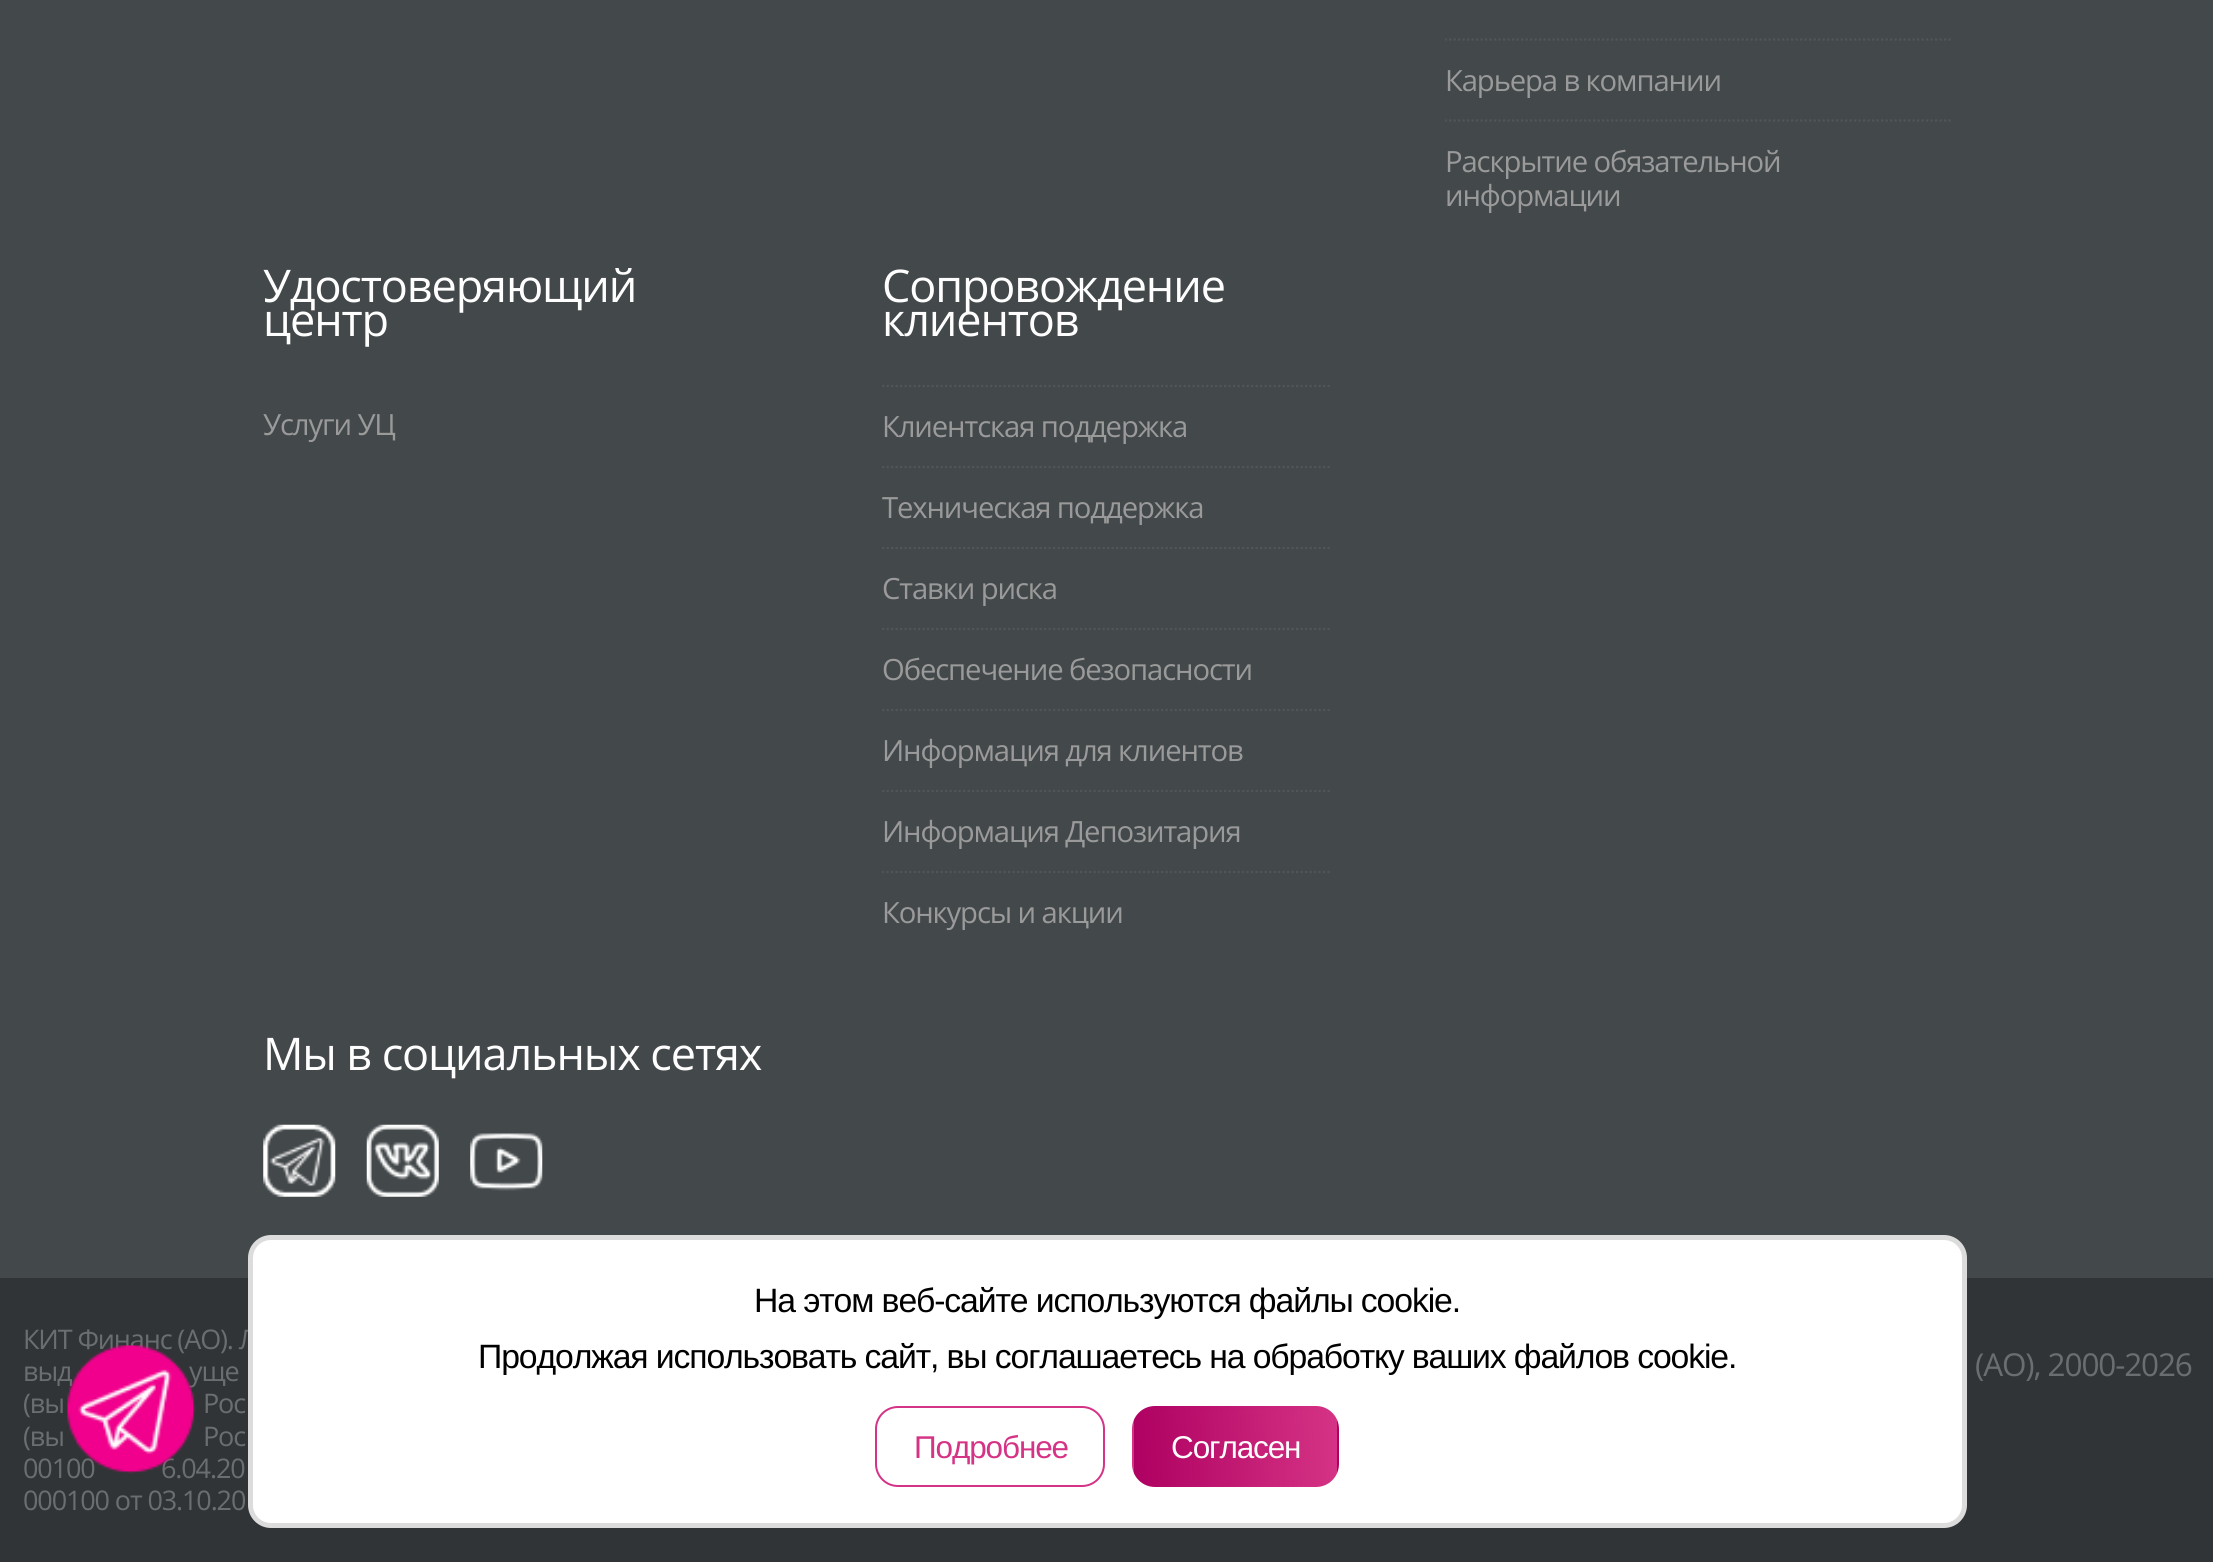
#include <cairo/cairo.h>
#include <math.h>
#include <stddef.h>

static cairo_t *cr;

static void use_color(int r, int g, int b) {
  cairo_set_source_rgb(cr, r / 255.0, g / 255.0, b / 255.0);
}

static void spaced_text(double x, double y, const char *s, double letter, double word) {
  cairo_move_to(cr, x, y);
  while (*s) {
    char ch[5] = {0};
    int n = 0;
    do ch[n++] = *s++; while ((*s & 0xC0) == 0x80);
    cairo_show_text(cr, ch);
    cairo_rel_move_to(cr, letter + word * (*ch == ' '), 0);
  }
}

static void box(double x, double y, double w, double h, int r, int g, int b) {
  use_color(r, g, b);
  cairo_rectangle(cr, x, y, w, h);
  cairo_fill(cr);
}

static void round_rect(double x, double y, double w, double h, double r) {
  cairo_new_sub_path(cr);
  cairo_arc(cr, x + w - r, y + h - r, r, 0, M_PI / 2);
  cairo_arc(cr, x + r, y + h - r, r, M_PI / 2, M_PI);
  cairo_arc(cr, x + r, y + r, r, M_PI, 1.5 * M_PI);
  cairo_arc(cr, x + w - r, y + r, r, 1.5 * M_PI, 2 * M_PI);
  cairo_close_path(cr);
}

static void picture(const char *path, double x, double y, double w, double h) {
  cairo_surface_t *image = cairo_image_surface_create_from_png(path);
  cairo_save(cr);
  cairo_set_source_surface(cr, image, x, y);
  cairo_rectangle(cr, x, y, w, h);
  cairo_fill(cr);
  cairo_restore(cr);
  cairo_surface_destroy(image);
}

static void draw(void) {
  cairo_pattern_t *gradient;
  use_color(48, 52, 54);
  cairo_paint(cr);
  box(0, 0, 2213, 1278, 67, 72, 74);
  cairo_save(cr);
  cairo_rectangle(cr, 1445, 0, 506, 245);
  cairo_clip(cr);
  cairo_new_path(cr);
  cairo_move_to(cr, 1444.5, 39.5);
  cairo_line_to(cr, 1951, 39.5);
  use_color(80, 85, 87);
  cairo_set_line_width(cr, 2.2);
  cairo_set_dash(cr, (double[]){2.25, 2.25}, 2, 0);
  cairo_stroke(cr);
  cairo_new_path(cr);
  cairo_move_to(cr, 1444.5, 120.5);
  cairo_line_to(cr, 1951, 120.5);
  cairo_stroke(cr);
  cairo_restore(cr);
  cairo_new_path(cr);
  cairo_move_to(cr, 882, 386);
  cairo_line_to(cr, 1332, 386);
  use_color(80, 85, 87);
  cairo_set_line_width(cr, 2.2);
  cairo_set_dash(cr, (double[]){2.25, 2.25}, 2, 0);
  cairo_stroke(cr);
  cairo_new_path(cr);
  cairo_move_to(cr, 882, 467);
  cairo_line_to(cr, 1332, 467);
  cairo_stroke(cr);
  cairo_new_path(cr);
  cairo_move_to(cr, 882, 548);
  cairo_line_to(cr, 1332, 548);
  cairo_stroke(cr);
  cairo_new_path(cr);
  cairo_move_to(cr, 882, 629);
  cairo_line_to(cr, 1332, 629);
  cairo_stroke(cr);
  cairo_new_path(cr);
  cairo_move_to(cr, 882, 710);
  cairo_line_to(cr, 1332, 710);
  cairo_stroke(cr);
  cairo_new_path(cr);
  cairo_move_to(cr, 882, 791);
  cairo_line_to(cr, 1332, 791);
  cairo_stroke(cr);
  cairo_new_path(cr);
  cairo_move_to(cr, 882, 872);
  cairo_line_to(cr, 1332, 872);
  cairo_stroke(cr);
  picture("img_01.png", 263, 1124, 73, 73);
  picture("img_02.png", 366, 1124, 73, 73);
  picture("img_03.png", 470, 1133, 73, 58);
  cairo_select_font_face(cr, "Open Sans", CAIRO_FONT_SLANT_NORMAL, CAIRO_FONT_WEIGHT_NORMAL);
  cairo_set_font_size(cr, 29.25);
  use_color(154, 154, 154);
  spaced_text(1445, 91, "Карьера в компании", -1.12, 0);
  spaced_text(1445, 172, "Раскрытие обязательной", -1.12, 0);
  spaced_text(1445, 206, "информации", -1.12, 0);
  cairo_set_font_size(cr, 45);
  use_color(255, 254, 254);
  spaced_text(263, 302, "Удостоверяющий", -1.12, 0);
  spaced_text(263, 336, "центр", -1.12, 0);
  cairo_set_font_size(cr, 29.25);
  use_color(154, 154, 154);
  spaced_text(263, 435, "Услуги УЦ", -1.12, 0);
  cairo_set_font_size(cr, 45);
  use_color(255, 254, 254);
  spaced_text(882, 302, "Сопровождение", -1.12, 0);
  spaced_text(882, 336, "клиентов", -1.12, 0);
  cairo_set_font_size(cr, 29.25);
  use_color(154, 154, 154);
  spaced_text(882, 437, "Клиентская поддержка", -1.12, 0);
  spaced_text(882, 518, "Техническая поддержка", -1.12, 0);
  spaced_text(882, 599, "Ставки риска", -1.12, 0);
  spaced_text(882, 680, "Обеспечение безопасности", -1.12, 0);
  spaced_text(882, 761, "Информация для клиентов", -1.12, 0);
  spaced_text(882, 842, "Информация Депозитария", -1.12, 0);
  spaced_text(882, 923, "Конкурсы и акции", -1.12, 0);
  cairo_set_font_size(cr, 45);
  use_color(255, 254, 254);
  spaced_text(263, 1070, "Мы в социальных сетях", -1.12, 0);
  cairo_set_font_size(cr, 27);
  use_color(107, 110, 113);
  spaced_text(23, 1349, "КИТ Финанс (АО). Л", -1.12, 0);
  use_color(255, 255, 255);
  round_rect(250.5, 1237.5, 1714, 288, 20.5);
  cairo_fill_preserve(cr);
  use_color(220, 220, 220);
  cairo_set_line_width(cr, 5);
  cairo_set_dash(cr, NULL, 0, 0);
  cairo_stroke(cr);
  cairo_save(cr);
  round_rect(1132, 1406, 207, 81, 23);
  cairo_clip(cr);
  gradient = cairo_pattern_create_linear(1132, 1452, 1338, 1441);
  cairo_pattern_add_color_stop_rgba(gradient, 0, 0.682, 0, 0.38, 1);
  cairo_pattern_add_color_stop_rgba(gradient, 1, 0.835, 0.2, 0.522, 1);
  cairo_set_source(cr, gradient);
  cairo_pattern_destroy(gradient);
  cairo_rectangle(cr, 1134, 1409, 203, 76);
  cairo_fill(cr);
  cairo_restore(cr);
  cairo_select_font_face(cr, "Liberation Sans", CAIRO_FONT_SLANT_NORMAL, CAIRO_FONT_WEIGHT_NORMAL);
  cairo_set_font_size(cr, 31.5);
  use_color(255, 254, 254);
  spaced_text(1171, 1458, "Согласен", -1.12, 0);
  cairo_save(cr);
  round_rect(1132, 1406, 207, 81, 23);
  cairo_clip(cr);
  gradient = cairo_pattern_create_linear(1132, 1529, 1338, 1518);
  cairo_pattern_add_color_stop_rgba(gradient, 0, 0.682, 0, 0.38, 1);
  cairo_pattern_add_color_stop_rgba(gradient, 1, 0.835, 0.2, 0.522, 1);
  cairo_set_source(cr, gradient);
  cairo_pattern_destroy(gradient);
  cairo_rectangle(cr, 1145, 1485, 181, 2);
  cairo_fill(cr);
  gradient = cairo_pattern_create_linear(1335, 1452, 1541, 1441);
  cairo_pattern_add_color_stop_rgba(gradient, 0, 0.682, 0, 0.38, 1);
  cairo_pattern_add_color_stop_rgba(gradient, 1, 0.835, 0.2, 0.522, 1);
  cairo_set_source(cr, gradient);
  cairo_pattern_destroy(gradient);
  cairo_rectangle(cr, 1337, 1419, 2, 55);
  cairo_fill(cr);
  gradient = cairo_pattern_create_linear(930, 1452, 1136, 1441);
  cairo_pattern_add_color_stop_rgba(gradient, 0, 0.682, 0, 0.38, 1);
  cairo_pattern_add_color_stop_rgba(gradient, 1, 0.835, 0.2, 0.522, 1);
  cairo_set_source(cr, gradient);
  cairo_pattern_destroy(gradient);
  cairo_rectangle(cr, 1132, 1419, 2, 55);
  cairo_fill(cr);
  gradient = cairo_pattern_create_linear(1132, 1376, 1338, 1365);
  cairo_pattern_add_color_stop_rgba(gradient, 0, 0.682, 0, 0.38, 1);
  cairo_pattern_add_color_stop_rgba(gradient, 1, 0.835, 0.2, 0.522, 1);
  cairo_set_source(cr, gradient);
  cairo_pattern_destroy(gradient);
  cairo_rectangle(cr, 1143, 1406, 185, 3);
  cairo_fill(cr);
  cairo_restore(cr);
  round_rect(876, 1407, 228, 79, 22);
  use_color(213, 51, 133);
  cairo_set_line_width(cr, 2);
  cairo_stroke(cr);
  spaced_text(914, 1458, "Подробнее", -1.12, 0);
  cairo_set_font_size(cr, 33.75);
  use_color(0, 0, 0);
  spaced_text(478, 1368, "Продолжая использовать сайт, вы соглашаетесь на обработку ваших файлов cookie.", -1.12, 0);
  spaced_text(754, 1312, "На этом веб-сайте используются файлы cookie.", -1.12, 0);
  cairo_select_font_face(cr, "Open Sans", CAIRO_FONT_SLANT_NORMAL, CAIRO_FONT_WEIGHT_NORMAL);
  cairo_set_font_size(cr, 27);
  use_color(107, 110, 113);
  spaced_text(23, 1381, "выд", -1.12, 0);
  spaced_text(189, 1381, "уще", -1.12, 0);
  spaced_text(23, 1413, "(вы", -1.12, 0);
  spaced_text(203, 1413, "Рос", -1.12, 0);
  spaced_text(23, 1446, "(вы", -1.12, 0);
  spaced_text(203, 1446, "Рос", -1.12, 0);
  spaced_text(23, 1478, "00100", -1.12, 0);
  spaced_text(161, 1478, "6.04.20", -1.12, 0);
  spaced_text(23, 1510, "000100 от 03.10.20", -1.12, 0);
  cairo_set_font_size(cr, 31.5);
  spaced_text(1975, 1376, "(АО), 2000-2026", -1.12, 0);
  picture("img_04.png", 67, 1345, 129, 129);
}

int main(void) {
  cairo_surface_t *surface = cairo_image_surface_create(CAIRO_FORMAT_RGB24, 2213, 1562);
  cr = cairo_create(surface);
  cairo_font_options_t *options = cairo_font_options_create();
  cairo_font_options_set_hint_metrics(options, CAIRO_HINT_METRICS_OFF);
  cairo_font_options_set_hint_style(options, CAIRO_HINT_STYLE_NONE);
  cairo_set_font_options(cr, options);
  cairo_set_miter_limit(cr, 4);
  draw();
  cairo_surface_write_to_png(surface, "out.png");
  cairo_font_options_destroy(options);
  cairo_destroy(cr);
  cairo_surface_destroy(surface);
  return 0;
}
